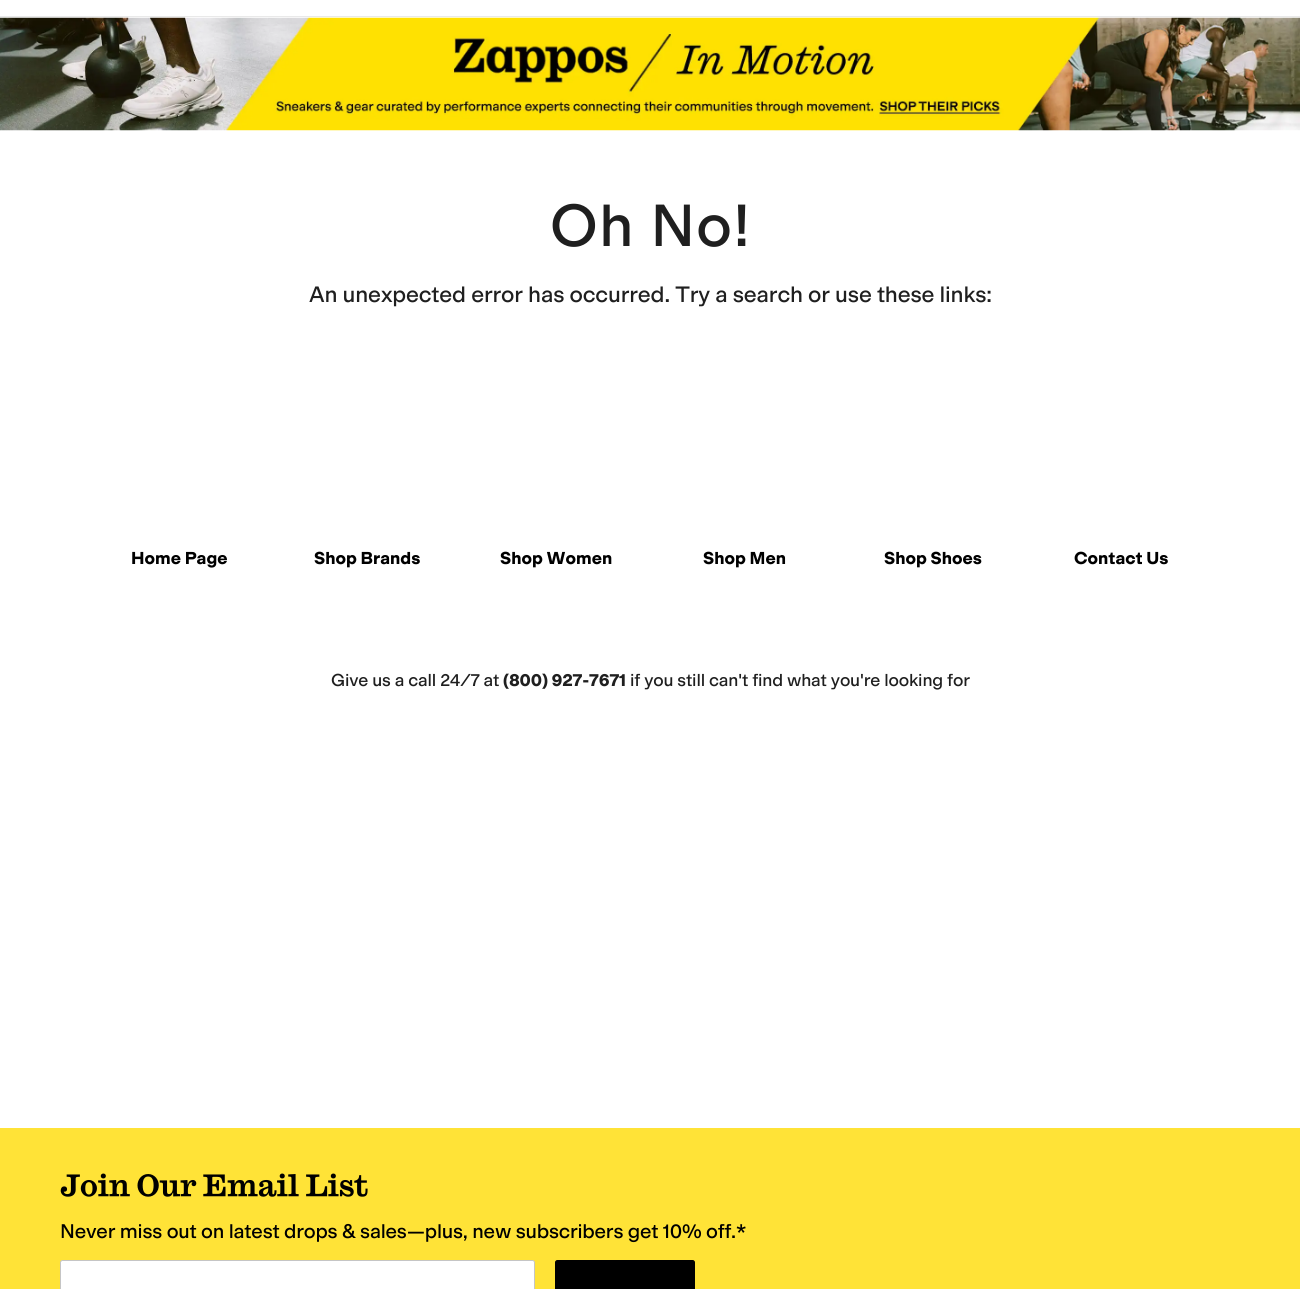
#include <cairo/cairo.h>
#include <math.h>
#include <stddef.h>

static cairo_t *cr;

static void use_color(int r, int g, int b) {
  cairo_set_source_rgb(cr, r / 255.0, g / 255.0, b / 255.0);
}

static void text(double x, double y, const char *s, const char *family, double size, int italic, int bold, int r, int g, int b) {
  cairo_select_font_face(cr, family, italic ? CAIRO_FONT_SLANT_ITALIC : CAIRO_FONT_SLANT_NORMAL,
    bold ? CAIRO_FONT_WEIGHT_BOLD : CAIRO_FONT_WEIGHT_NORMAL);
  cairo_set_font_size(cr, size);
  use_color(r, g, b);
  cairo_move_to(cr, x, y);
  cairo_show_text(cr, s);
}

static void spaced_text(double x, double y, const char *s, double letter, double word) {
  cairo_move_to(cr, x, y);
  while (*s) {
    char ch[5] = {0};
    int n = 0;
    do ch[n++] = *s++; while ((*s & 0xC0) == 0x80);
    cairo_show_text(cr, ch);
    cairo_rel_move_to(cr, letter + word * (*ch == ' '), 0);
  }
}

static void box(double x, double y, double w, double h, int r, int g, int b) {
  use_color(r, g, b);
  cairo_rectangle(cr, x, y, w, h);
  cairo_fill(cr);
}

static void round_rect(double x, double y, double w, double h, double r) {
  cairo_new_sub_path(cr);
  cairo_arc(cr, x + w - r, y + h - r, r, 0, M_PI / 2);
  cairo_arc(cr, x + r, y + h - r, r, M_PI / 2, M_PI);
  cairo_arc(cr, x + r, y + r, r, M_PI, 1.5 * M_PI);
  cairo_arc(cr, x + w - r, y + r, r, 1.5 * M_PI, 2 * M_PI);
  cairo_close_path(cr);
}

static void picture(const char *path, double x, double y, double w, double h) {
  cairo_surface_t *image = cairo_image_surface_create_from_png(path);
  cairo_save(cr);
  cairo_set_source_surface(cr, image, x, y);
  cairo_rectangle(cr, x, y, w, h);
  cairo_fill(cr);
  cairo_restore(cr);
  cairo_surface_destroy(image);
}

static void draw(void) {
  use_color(255, 255, 255);
  cairo_paint(cr);
  box(0, 16, 1300, 1, 233, 233, 233);
  picture("img_01.png", 0, 17, 1300, 114);
  box(0, 1128, 1300, 161, 255, 227, 55);
  picture("img_02.png", 60, 1173, 308, 24);
  use_color(255, 255, 255);
  round_rect(60.5, 1260.5, 474, 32, 2);
  cairo_fill_preserve(cr);
  use_color(197, 197, 197);
  cairo_set_line_width(cr, 1);
  cairo_stroke(cr);
  use_color(0, 0, 0);
  round_rect(555.5, 1260.5, 139, 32, 2);
  cairo_fill_preserve(cr);
  cairo_stroke(cr);
  cairo_select_font_face(cr, "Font", CAIRO_FONT_SLANT_NORMAL, CAIRO_FONT_WEIGHT_NORMAL);
  cairo_set_font_size(cr, 60);
  use_color(31, 31, 31);
  spaced_text(550, 246, "Oh No!", 1.25, 0);
  cairo_set_font_size(cr, 22.5);
  spaced_text(309, 302, "An unexpected error has occurred. Try a search or use these links:", -0.15, 0);
  text(131, 564, "Home Page", "Font", 17.5, 0, 1, 0, 0, 0);
  text(314, 564, "Shop Brands", "Font", 17.5, 0, 1, 0, 0, 0);
  text(500, 564, "Shop Women", "Font", 17.5, 0, 1, 0, 0, 0);
  text(703, 564, "Shop Men", "Font", 17.5, 0, 1, 0, 0, 0);
  text(884, 564, "Shop Shoes", "Font", 17.5, 0, 1, 0, 0, 0);
  text(1074, 564, "Contact Us", "Font", 17.5, 0, 1, 0, 0, 0);
  cairo_select_font_face(cr, "Font", CAIRO_FONT_SLANT_NORMAL, CAIRO_FONT_WEIGHT_NORMAL);
  use_color(31, 31, 31);
  spaced_text(331, 686, "Give us a call 24/7 at", -0.15, 0);
  cairo_select_font_face(cr, "Font", CAIRO_FONT_SLANT_NORMAL, CAIRO_FONT_WEIGHT_BOLD);
  spaced_text(503, 686, "(800) 927-7671", -0.15, 0);
  cairo_select_font_face(cr, "Font", CAIRO_FONT_SLANT_NORMAL, CAIRO_FONT_WEIGHT_NORMAL);
  spaced_text(630, 686, "if you still can't find what you're looking for", -0.15, 0);
  cairo_set_font_size(cr, 20);
  use_color(0, 0, 0);
  spaced_text(60, 1238, "Never miss out on latest drops & sales—plus, new subscribers get 10% off.*", -0.2, 0);
}

int main(void) {
  cairo_surface_t *surface = cairo_image_surface_create(CAIRO_FORMAT_RGB24, 1300, 1289);
  cr = cairo_create(surface);
  cairo_font_options_t *options = cairo_font_options_create();
  cairo_font_options_set_hint_metrics(options, CAIRO_HINT_METRICS_OFF);
  cairo_font_options_set_hint_style(options, CAIRO_HINT_STYLE_NONE);
  cairo_set_font_options(cr, options);
  cairo_set_miter_limit(cr, 4);
  draw();
  cairo_surface_write_to_png(surface, "out.png");
  cairo_font_options_destroy(options);
  cairo_destroy(cr);
  cairo_surface_destroy(surface);
  return 0;
}
